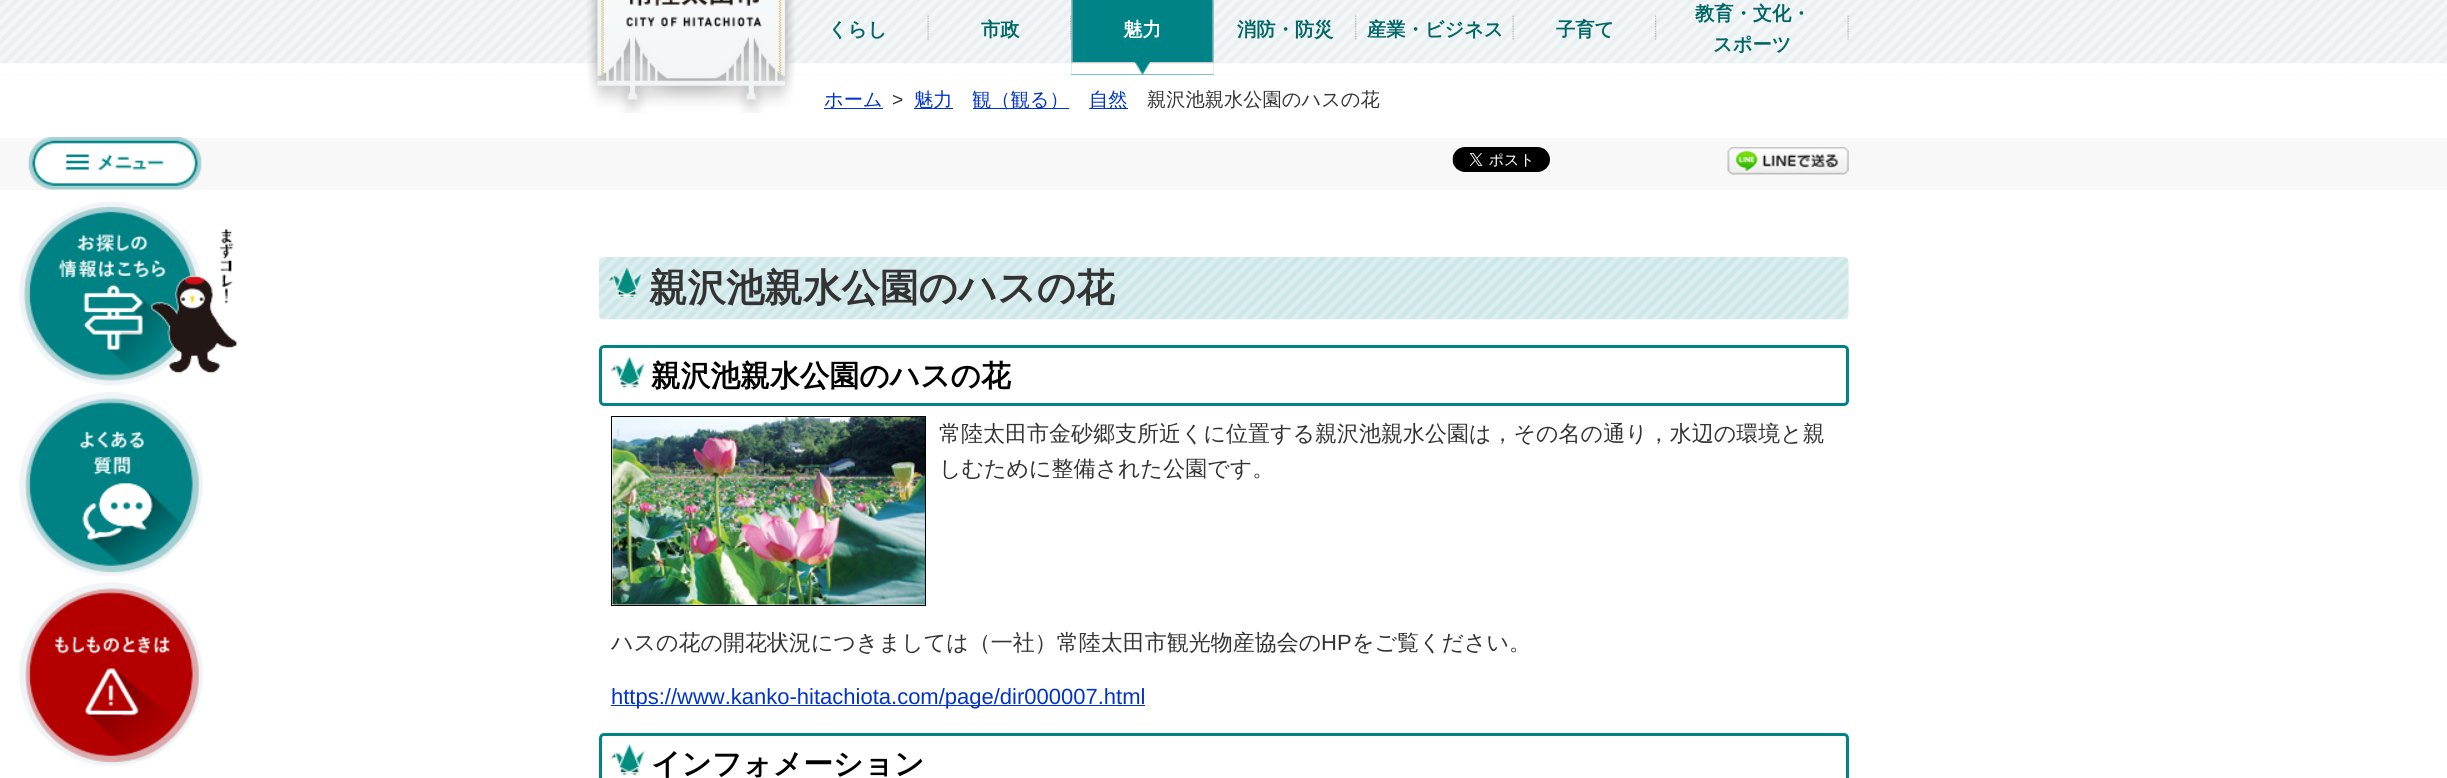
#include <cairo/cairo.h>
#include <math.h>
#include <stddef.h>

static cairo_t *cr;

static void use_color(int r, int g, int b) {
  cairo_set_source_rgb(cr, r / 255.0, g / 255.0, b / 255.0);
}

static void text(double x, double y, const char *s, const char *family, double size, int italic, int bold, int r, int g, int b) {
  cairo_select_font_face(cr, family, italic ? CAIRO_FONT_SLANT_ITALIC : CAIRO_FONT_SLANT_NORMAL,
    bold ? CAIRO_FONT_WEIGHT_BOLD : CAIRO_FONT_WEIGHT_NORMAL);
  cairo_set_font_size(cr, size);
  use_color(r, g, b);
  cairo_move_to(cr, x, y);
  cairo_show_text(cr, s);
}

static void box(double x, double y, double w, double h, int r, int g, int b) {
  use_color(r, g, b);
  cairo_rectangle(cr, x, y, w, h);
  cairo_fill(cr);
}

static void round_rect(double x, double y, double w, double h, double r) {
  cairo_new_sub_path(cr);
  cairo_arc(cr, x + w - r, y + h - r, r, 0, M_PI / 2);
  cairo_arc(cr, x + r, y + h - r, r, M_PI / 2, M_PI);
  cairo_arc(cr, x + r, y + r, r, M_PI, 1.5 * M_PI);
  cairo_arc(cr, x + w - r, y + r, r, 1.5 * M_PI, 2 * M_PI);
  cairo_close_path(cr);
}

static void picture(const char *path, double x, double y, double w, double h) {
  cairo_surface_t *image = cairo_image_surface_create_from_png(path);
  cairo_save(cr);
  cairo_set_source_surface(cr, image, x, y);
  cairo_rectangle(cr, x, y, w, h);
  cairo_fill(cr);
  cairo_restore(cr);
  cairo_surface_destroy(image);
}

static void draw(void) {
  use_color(255, 255, 255);
  cairo_paint(cr);
  picture("img_02.png", 0, 0, 2447, 75);
  picture("img_01.png", 587, 0, 208, 113);
  picture("img_03.png", 927, 15, 2, 25);
  picture("img_04.png", 1070, 14, 1, 26);
  box(1071, 0, 143, 75, 0, 131, 134);
  picture("img_05.png", 1071, 0, 143, 75);
  picture("img_06.png", 1355, 14, 2, 26);
  picture("img_07.png", 1512, 15, 2, 25);
  picture("img_06.png", 1655, 14, 2, 26);
  picture("img_08.png", 1847, 15, 2, 25);
  box(0, 138, 2447, 52, 248, 248, 248);
  picture("img_09.png", 28, 137, 174, 53);
  picture("img_10.png", 19, 202, 219, 184);
  picture("img_11.png", 19, 392, 184, 184);
  picture("img_12.png", 19, 582, 184, 184);
  box(824, 108, 59, 1, 0, 51, 204);
  box(914, 108, 39, 1, 0, 51, 204);
  box(973, 108, 96, 1, 0, 51, 204);
  box(1089, 108, 39, 1, 0, 51, 204);
  picture("img_13.png", 1452, 147, 98, 25);
  picture("img_14.png", 1727, 147, 122, 28);
  picture("img_15.png", 599, 257, 1250, 63);
  picture("img_16.png", 610, 356, 35, 33);
  round_rect(600.5, 346.5, 1247, 58, 3.5);
  use_color(0, 131, 134);
  cairo_set_line_width(cr, 3);
  cairo_stroke(cr);
  cairo_rectangle(cr, 611.5, 416.5, 314, 189);
  use_color(0, 0, 0);
  cairo_set_line_width(cr, 1);
  cairo_stroke(cr);
  picture("img_17.png", 612, 417, 313, 188);
  box(611, 705, 534, 1, 0, 51, 204);
  picture("img_18.png", 610, 743, 35, 33);
  round_rect(600.5, 734.5, 1247, 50, 3.5);
  use_color(0, 131, 134);
  cairo_set_line_width(cr, 3);
  cairo_stroke(cr);
  text(828, 36, "くらし", "WenQuanYi Zen Hei", 19.25, 0, 1, 0, 102, 102);
  text(981, 36, "市政", "WenQuanYi Zen Hei", 19.25, 0, 1, 0, 102, 102);
  text(1123, 36, "魅力", "WenQuanYi Zen Hei", 19.25, 0, 1, 255, 255, 255);
  text(1237, 36, "消防・防災", "WenQuanYi Zen Hei", 19.25, 0, 1, 0, 102, 102);
  text(1367, 36, "産業・ビジネス", "WenQuanYi Zen Hei", 19.25, 0, 1, 0, 102, 102);
  text(1556, 36, "子育て", "WenQuanYi Zen Hei", 19.25, 0, 1, 0, 102, 102);
  text(1695, 20, "教育・文化・", "WenQuanYi Zen Hei", 19.25, 0, 1, 0, 102, 102);
  text(1713, 51, "スポーツ", "WenQuanYi Zen Hei", 19.25, 0, 1, 0, 102, 102);
  text(824, 106, "ホーム", "WenQuanYi Zen Hei Medium", 19.25, 0, 0, 0, 51, 204);
  text(892, 106, ">", "Liberation Sans", 19.25, 0, 0, 51, 51, 51);
  text(914, 106, "魅力", "WenQuanYi Zen Hei Medium", 19.25, 0, 0, 0, 51, 204);
  text(972, 106, "観（観る）", "WenQuanYi Zen Hei Medium", 19.25, 0, 0, 0, 51, 204);
  text(1089, 106, "自然", "WenQuanYi Zen Hei Medium", 19.25, 0, 0, 0, 51, 204);
  text(1147, 106, "親沢池親水公園のハスの花", "WenQuanYi Zen Hei Medium", 19.25, 0, 0, 51, 51, 51);
  text(649, 301, "親沢池親水公園のハスの花", "WenQuanYi Zen Hei", 38.5, 0, 1, 51, 51, 51);
  text(651, 386, "親沢池親水公園のハスの花", "WenQuanYi Zen Hei", 29.75, 0, 1, 0, 0, 0);
  text(939, 441, "常陸太田市金砂郷支所近くに位置する親沢池親水公園は，その名の通り，水辺の環境と親", "WenQuanYi Zen Hei Medium", 22, 0, 0, 51, 51, 51);
  text(939, 476, "しむために整備された公園です。", "WenQuanYi Zen Hei Medium", 22, 0, 0, 51, 51, 51);
  text(611, 650, "ハスの花の開花状況につきましては（一社）常陸太田市観光物産協会の", "WenQuanYi Zen Hei Medium", 22, 0, 0, 51, 51, 51);
  text(1321, 650, "HP", "Liberation Sans", 22, 0, 0, 51, 51, 51);
  text(1352, 650, "をご覧ください。", "WenQuanYi Zen Hei Medium", 22, 0, 0, 51, 51, 51);
  text(611, 704, "https://www.kanko-hitachiota.com/page/dir000007.html", "Liberation Sans", 22, 0, 0, 0, 51, 204);
  text(651, 774, "インフォメーション", "WenQuanYi Zen Hei", 29.75, 0, 1, 0, 0, 0);
}

int main(void) {
  cairo_surface_t *surface = cairo_image_surface_create(CAIRO_FORMAT_RGB24, 2447, 778);
  cr = cairo_create(surface);
  cairo_font_options_t *options = cairo_font_options_create();
  cairo_font_options_set_hint_metrics(options, CAIRO_HINT_METRICS_OFF);
  cairo_font_options_set_hint_style(options, CAIRO_HINT_STYLE_NONE);
  cairo_set_font_options(cr, options);
  cairo_set_miter_limit(cr, 4);
  draw();
  cairo_surface_write_to_png(surface, "out.png");
  cairo_font_options_destroy(options);
  cairo_destroy(cr);
  cairo_surface_destroy(surface);
  return 0;
}
